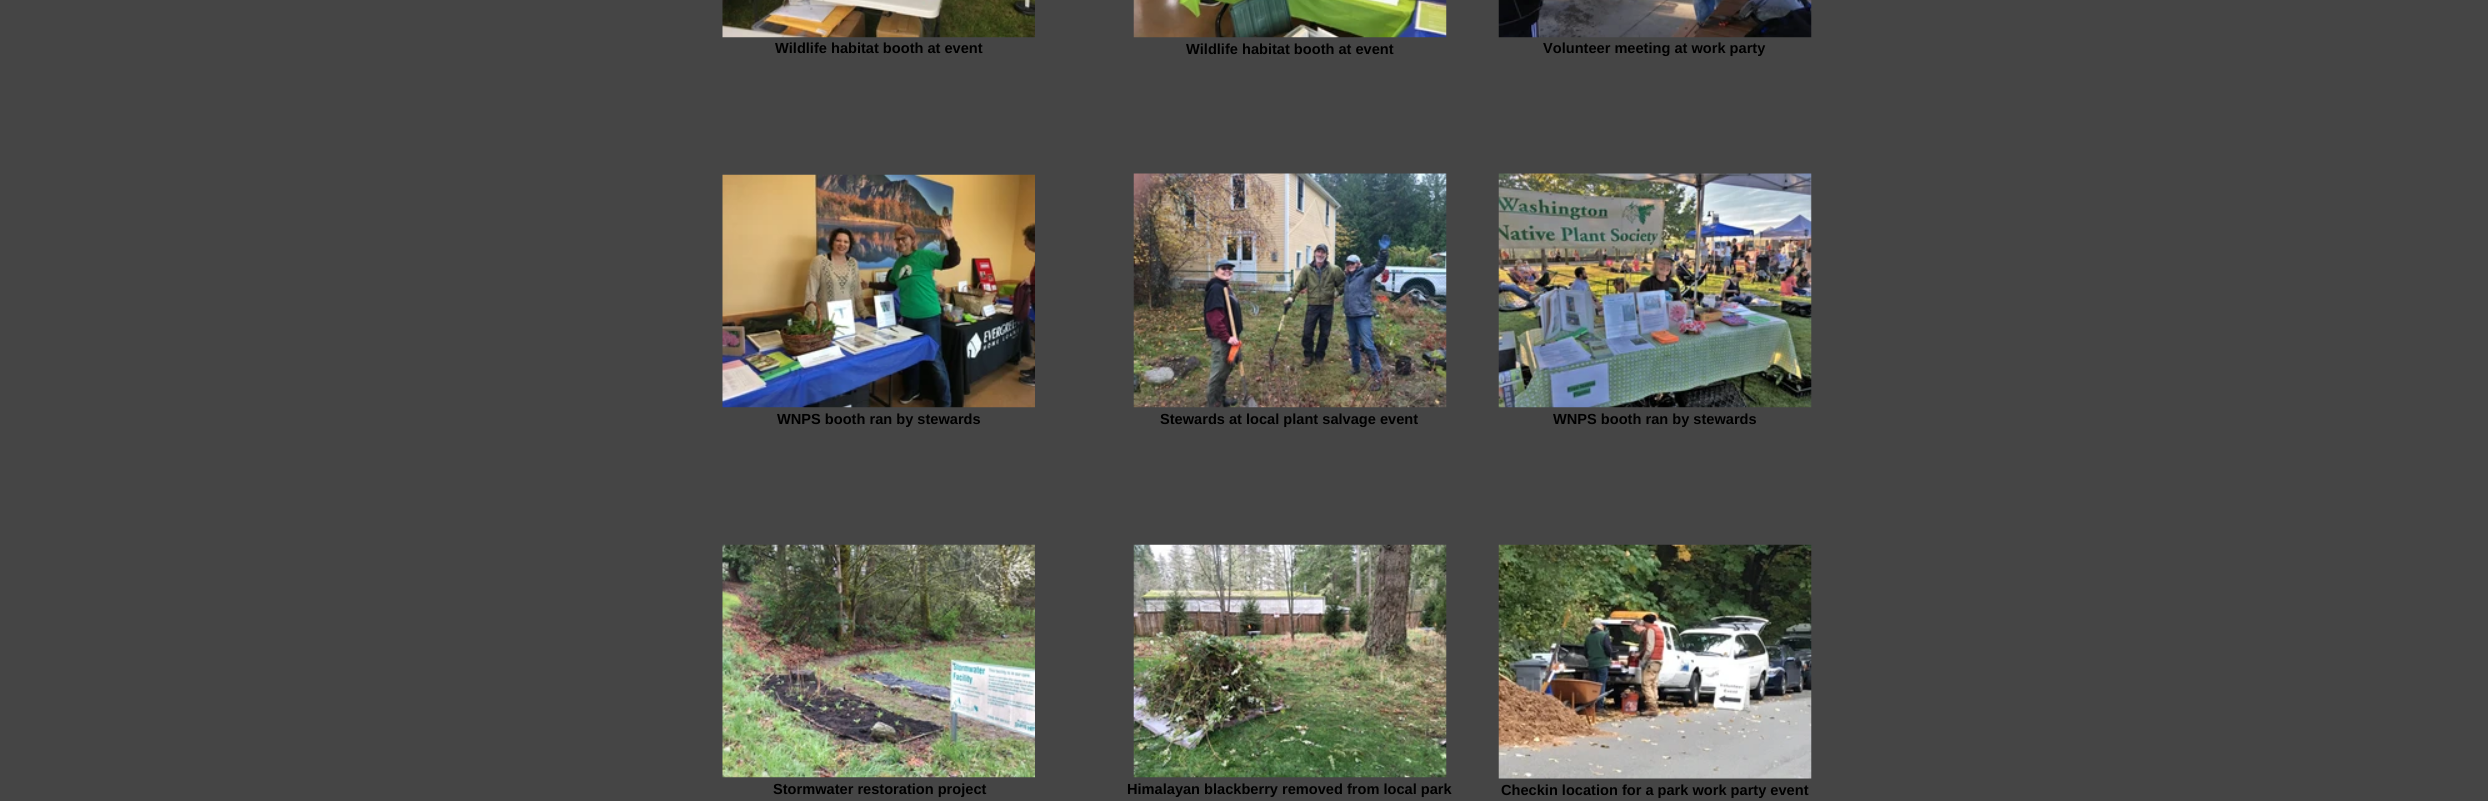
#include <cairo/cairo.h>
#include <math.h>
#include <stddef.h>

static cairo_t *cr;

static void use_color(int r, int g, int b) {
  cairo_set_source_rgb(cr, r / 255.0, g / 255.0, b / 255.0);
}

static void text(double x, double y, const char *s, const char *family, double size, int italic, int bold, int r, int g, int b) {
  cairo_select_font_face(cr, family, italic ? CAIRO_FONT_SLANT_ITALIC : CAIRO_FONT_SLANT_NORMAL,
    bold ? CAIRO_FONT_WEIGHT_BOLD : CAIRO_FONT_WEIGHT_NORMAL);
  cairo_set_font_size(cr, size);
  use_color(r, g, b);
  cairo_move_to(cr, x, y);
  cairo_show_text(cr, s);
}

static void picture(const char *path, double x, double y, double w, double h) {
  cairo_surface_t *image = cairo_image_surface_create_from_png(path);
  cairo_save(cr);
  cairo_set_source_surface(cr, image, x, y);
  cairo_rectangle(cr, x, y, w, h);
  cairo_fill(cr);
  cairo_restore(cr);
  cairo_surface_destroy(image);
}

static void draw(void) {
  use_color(69, 69, 69);
  cairo_paint(cr);
  picture("img_01.png", 722, 0, 313, 38);
  picture("img_02.png", 1133, 0, 314, 38);
  picture("img_03.png", 1498, 0, 314, 38);
  picture("img_04.png", 722, 174, 313, 234);
  picture("img_05.png", 1133, 173, 314, 235);
  picture("img_06.png", 1498, 173, 314, 235);
  picture("img_07.png", 722, 544, 313, 234);
  picture("img_08.png", 1133, 544, 314, 234);
  picture("img_09.png", 1498, 544, 314, 235);
  text(775, 53, "Wildlife habitat booth at event", "Liberation Sans", 14.6, 0, 1, 0, 0, 0);
  text(1186, 54, "Wildlife habitat booth at event", "Liberation Sans", 14.6, 0, 1, 0, 0, 0);
  text(1543, 53, "Volunteer meeting at work party", "Liberation Sans", 14.6, 0, 1, 0, 0, 0);
  text(777, 424, "WNPS booth ran by stewards", "Liberation Sans", 14.6, 0, 1, 0, 0, 0);
  text(1160, 424, "Stewards at local plant salvage event", "Liberation Sans", 14.6, 0, 1, 0, 0, 0);
  text(1553, 424, "WNPS booth ran by stewards", "Liberation Sans", 14.6, 0, 1, 0, 0, 0);
  text(773, 794, "Stormwater restoration project", "Liberation Sans", 14.6, 0, 1, 0, 0, 0);
  text(1127, 794, "Himalayan blackberry removed from local park", "Liberation Sans", 14.6, 0, 1, 0, 0, 0);
  text(1501, 795, "Checkin location for a park work party event", "Liberation Sans", 14.6, 0, 1, 0, 0, 0);
}

int main(void) {
  cairo_surface_t *surface = cairo_image_surface_create(CAIRO_FORMAT_RGB24, 2488, 801);
  cr = cairo_create(surface);
  cairo_font_options_t *options = cairo_font_options_create();
  cairo_font_options_set_hint_metrics(options, CAIRO_HINT_METRICS_OFF);
  cairo_font_options_set_hint_style(options, CAIRO_HINT_STYLE_NONE);
  cairo_set_font_options(cr, options);
  cairo_set_miter_limit(cr, 4);
  draw();
  cairo_surface_write_to_png(surface, "out.png");
  cairo_font_options_destroy(options);
  cairo_destroy(cr);
  cairo_surface_destroy(surface);
  return 0;
}
